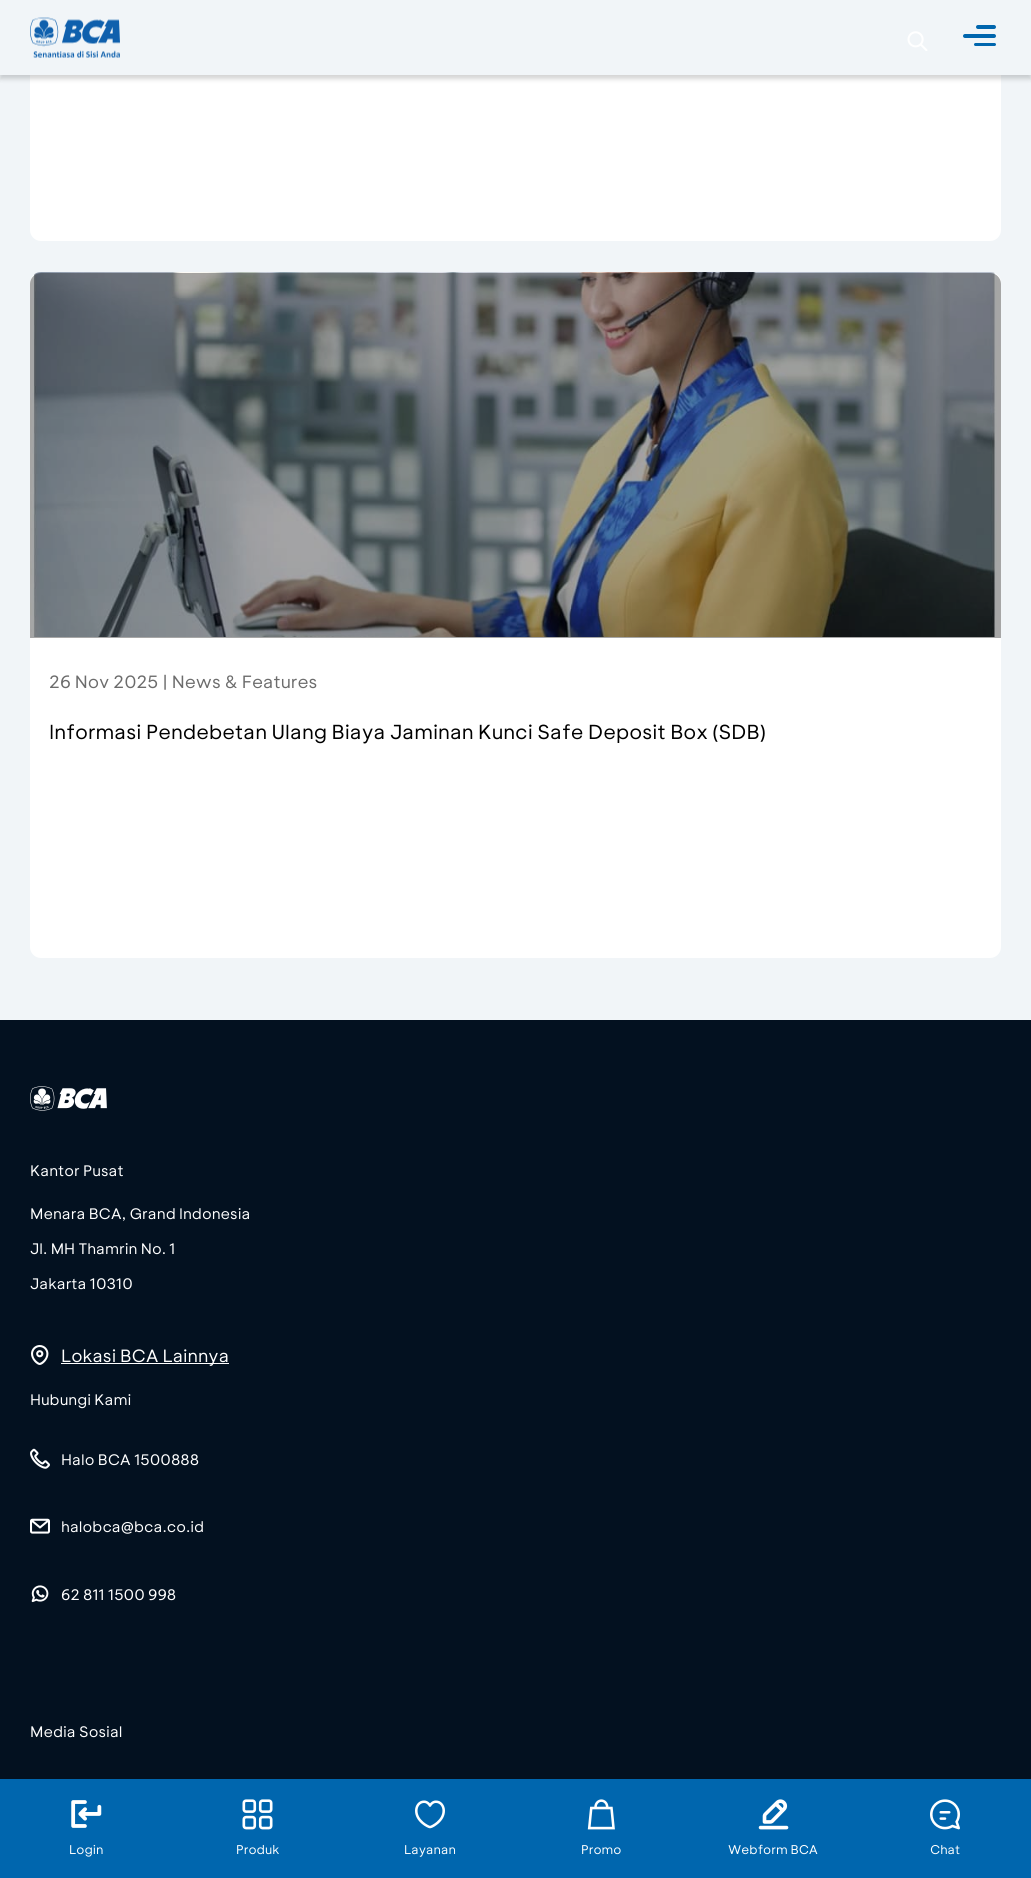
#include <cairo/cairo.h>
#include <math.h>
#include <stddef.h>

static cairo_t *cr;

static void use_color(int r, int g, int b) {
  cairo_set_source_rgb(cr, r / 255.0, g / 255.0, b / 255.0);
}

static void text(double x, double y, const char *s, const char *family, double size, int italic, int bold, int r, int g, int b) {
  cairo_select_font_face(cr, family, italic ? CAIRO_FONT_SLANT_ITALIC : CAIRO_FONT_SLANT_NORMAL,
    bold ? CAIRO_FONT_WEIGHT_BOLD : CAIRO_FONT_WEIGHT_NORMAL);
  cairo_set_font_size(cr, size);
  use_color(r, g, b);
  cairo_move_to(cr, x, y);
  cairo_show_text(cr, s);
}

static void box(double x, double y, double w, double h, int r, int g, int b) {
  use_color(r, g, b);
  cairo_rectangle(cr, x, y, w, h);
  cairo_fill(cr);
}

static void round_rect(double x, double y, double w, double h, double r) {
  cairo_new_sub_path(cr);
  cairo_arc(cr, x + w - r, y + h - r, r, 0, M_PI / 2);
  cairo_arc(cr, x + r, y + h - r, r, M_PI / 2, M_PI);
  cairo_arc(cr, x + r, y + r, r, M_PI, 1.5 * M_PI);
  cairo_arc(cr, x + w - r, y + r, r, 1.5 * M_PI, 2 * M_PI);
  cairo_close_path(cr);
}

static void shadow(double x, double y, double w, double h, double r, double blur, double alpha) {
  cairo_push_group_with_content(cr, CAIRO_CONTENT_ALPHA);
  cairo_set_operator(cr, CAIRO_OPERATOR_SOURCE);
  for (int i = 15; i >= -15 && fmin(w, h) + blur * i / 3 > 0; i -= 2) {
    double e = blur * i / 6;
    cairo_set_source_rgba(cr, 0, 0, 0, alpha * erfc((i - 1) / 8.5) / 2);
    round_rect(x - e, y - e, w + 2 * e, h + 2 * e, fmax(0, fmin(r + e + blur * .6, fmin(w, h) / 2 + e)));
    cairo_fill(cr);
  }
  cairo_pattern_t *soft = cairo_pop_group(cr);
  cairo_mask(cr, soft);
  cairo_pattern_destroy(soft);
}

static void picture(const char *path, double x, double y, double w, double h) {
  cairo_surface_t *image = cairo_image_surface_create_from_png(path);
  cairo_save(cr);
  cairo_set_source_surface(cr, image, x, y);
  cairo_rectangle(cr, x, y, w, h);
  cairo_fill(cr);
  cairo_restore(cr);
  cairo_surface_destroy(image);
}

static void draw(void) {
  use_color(241, 245, 248);
  cairo_paint(cr);
  use_color(255, 255, 255);
  round_rect(30, -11, 971, 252, 11);
  cairo_fill(cr);
  use_color(0, 0, 0);
  shadow(0, 4, 1031, 75, 0, 2, 0.1);
  shadow(0, 4, 1031, 75, 0, 2.5, 0.05);
  shadow(0, 1, 1031, 75, 0, 5, 0.05);
  box(0, 0, 1031, 75, 241, 245, 248);
  picture("img_01.png", 30, 17, 90, 41);
  picture("img_02.png", 907, 31, 21, 20);
  use_color(0, 102, 174);
  round_rect(976, 25, 20, 4, 2);
  cairo_fill(cr);
  round_rect(963, 34, 33, 4, 2);
  cairo_fill(cr);
  round_rect(974, 43, 22, 3, 1.5);
  cairo_fill(cr);
  use_color(255, 255, 255);
  round_rect(30, 273, 971, 685, 11);
  cairo_fill(cr);
  picture("img_03.png", 30, 272, 971, 365);
  cairo_set_source_rgba(cr, 0, 0, 0, 0.35);
  cairo_new_path(cr);
  cairo_move_to(cr, 41, 273);
  cairo_line_to(cr, 990, 273);
  cairo_curve_to(cr, 996, 273, 1001, 278, 1001, 284);
  cairo_line_to(cr, 1001, 638);
  cairo_line_to(cr, 30, 638);
  cairo_line_to(cr, 30, 284);
  cairo_curve_to(cr, 30, 278, 35, 273, 41, 273);
  cairo_close_path(cr);
  cairo_fill(cr);
  box(0, 1020, 1031, 759, 3, 17, 32);
  picture("img_04.png", 30, 1086, 77, 25);
  picture("img_05.png", 31, 1345, 18, 20);
  box(61, 1363, 168, 1, 255, 255, 255);
  picture("img_06.png", 30, 1448, 20, 21);
  picture("img_07.png", 30, 1518, 20, 16);
  picture("img_08.png", 31, 1585, 18, 18);
  box(0, 1779, 1031, 99, 0, 102, 174);
  picture("img_09.png", 71, 1800, 31, 28);
  picture("img_10.png", 242, 1799, 31, 31);
  picture("img_11.png", 415, 1800, 30, 29);
  picture("img_12.png", 587, 1799, 28, 31);
  picture("img_13.png", 758, 1799, 31, 31);
  picture("img_14.png", 930, 1799, 30, 31);
  text(49, 688, "26 Nov 2025 | News & Features", "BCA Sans", 17.5, 0, 0, 108, 108, 108);
  text(49, 739, "Informasi Pendebetan Ulang Biaya Jaminan Kunci Safe Deposit Box (SDB)", "BCA Sans", 20, 0, 0, 0, 0, 0);
  text(30, 1176, "Kantor Pusat", "BCA Sans", 15, 0, 0, 255, 255, 255);
  text(30, 1219, "Menara BCA, Grand Indonesia", "BCA Sans", 15, 0, 0, 255, 255, 255);
  text(30, 1254, "Jl. MH Thamrin No. 1", "BCA Sans", 15, 0, 0, 255, 255, 255);
  text(30, 1289, "Jakarta 10310", "BCA Sans", 15, 0, 0, 255, 255, 255);
  text(61, 1362, "Lokasi BCA Lainnya", "BCA Sans", 17.5, 0, 0, 255, 255, 255);
  text(30, 1405, "Hubungi Kami", "BCA Sans", 15, 0, 0, 255, 255, 255);
  text(61, 1465, "Halo BCA 1500888", "BCA Sans", 15, 0, 0, 255, 255, 255);
  text(61, 1532, "halobca@bca.co.id", "BCA Sans", 15, 0, 0, 255, 255, 255);
  text(61, 1600, "62 811 1500 998", "BCA Sans", 15, 0, 0, 255, 255, 255);
  text(30, 1737, "Media Sosial", "BCA Sans", 15, 0, 0, 255, 255, 255);
  text(69, 1854, "Login", "BCA Sans", 12.5, 0, 0, 255, 255, 255);
  text(236, 1854, "Produk", "BCA Sans", 12.5, 0, 0, 255, 255, 255);
  text(404, 1854, "Layanan", "BCA Sans", 12.5, 0, 0, 255, 255, 255);
  text(581, 1854, "Promo", "BCA Sans", 12.5, 0, 0, 255, 255, 255);
  text(728, 1854, "Webform BCA", "BCA Sans", 12.5, 0, 0, 255, 255, 255);
  text(930, 1854, "Chat", "BCA Sans", 12.5, 0, 0, 255, 255, 255);
}

int main(void) {
  cairo_surface_t *surface = cairo_image_surface_create(CAIRO_FORMAT_RGB24, 1031, 1878);
  cr = cairo_create(surface);
  cairo_font_options_t *options = cairo_font_options_create();
  cairo_font_options_set_hint_metrics(options, CAIRO_HINT_METRICS_OFF);
  cairo_font_options_set_hint_style(options, CAIRO_HINT_STYLE_NONE);
  cairo_set_font_options(cr, options);
  cairo_set_miter_limit(cr, 4);
  draw();
  cairo_surface_write_to_png(surface, "out.png");
  cairo_font_options_destroy(options);
  cairo_destroy(cr);
  cairo_surface_destroy(surface);
  return 0;
}
